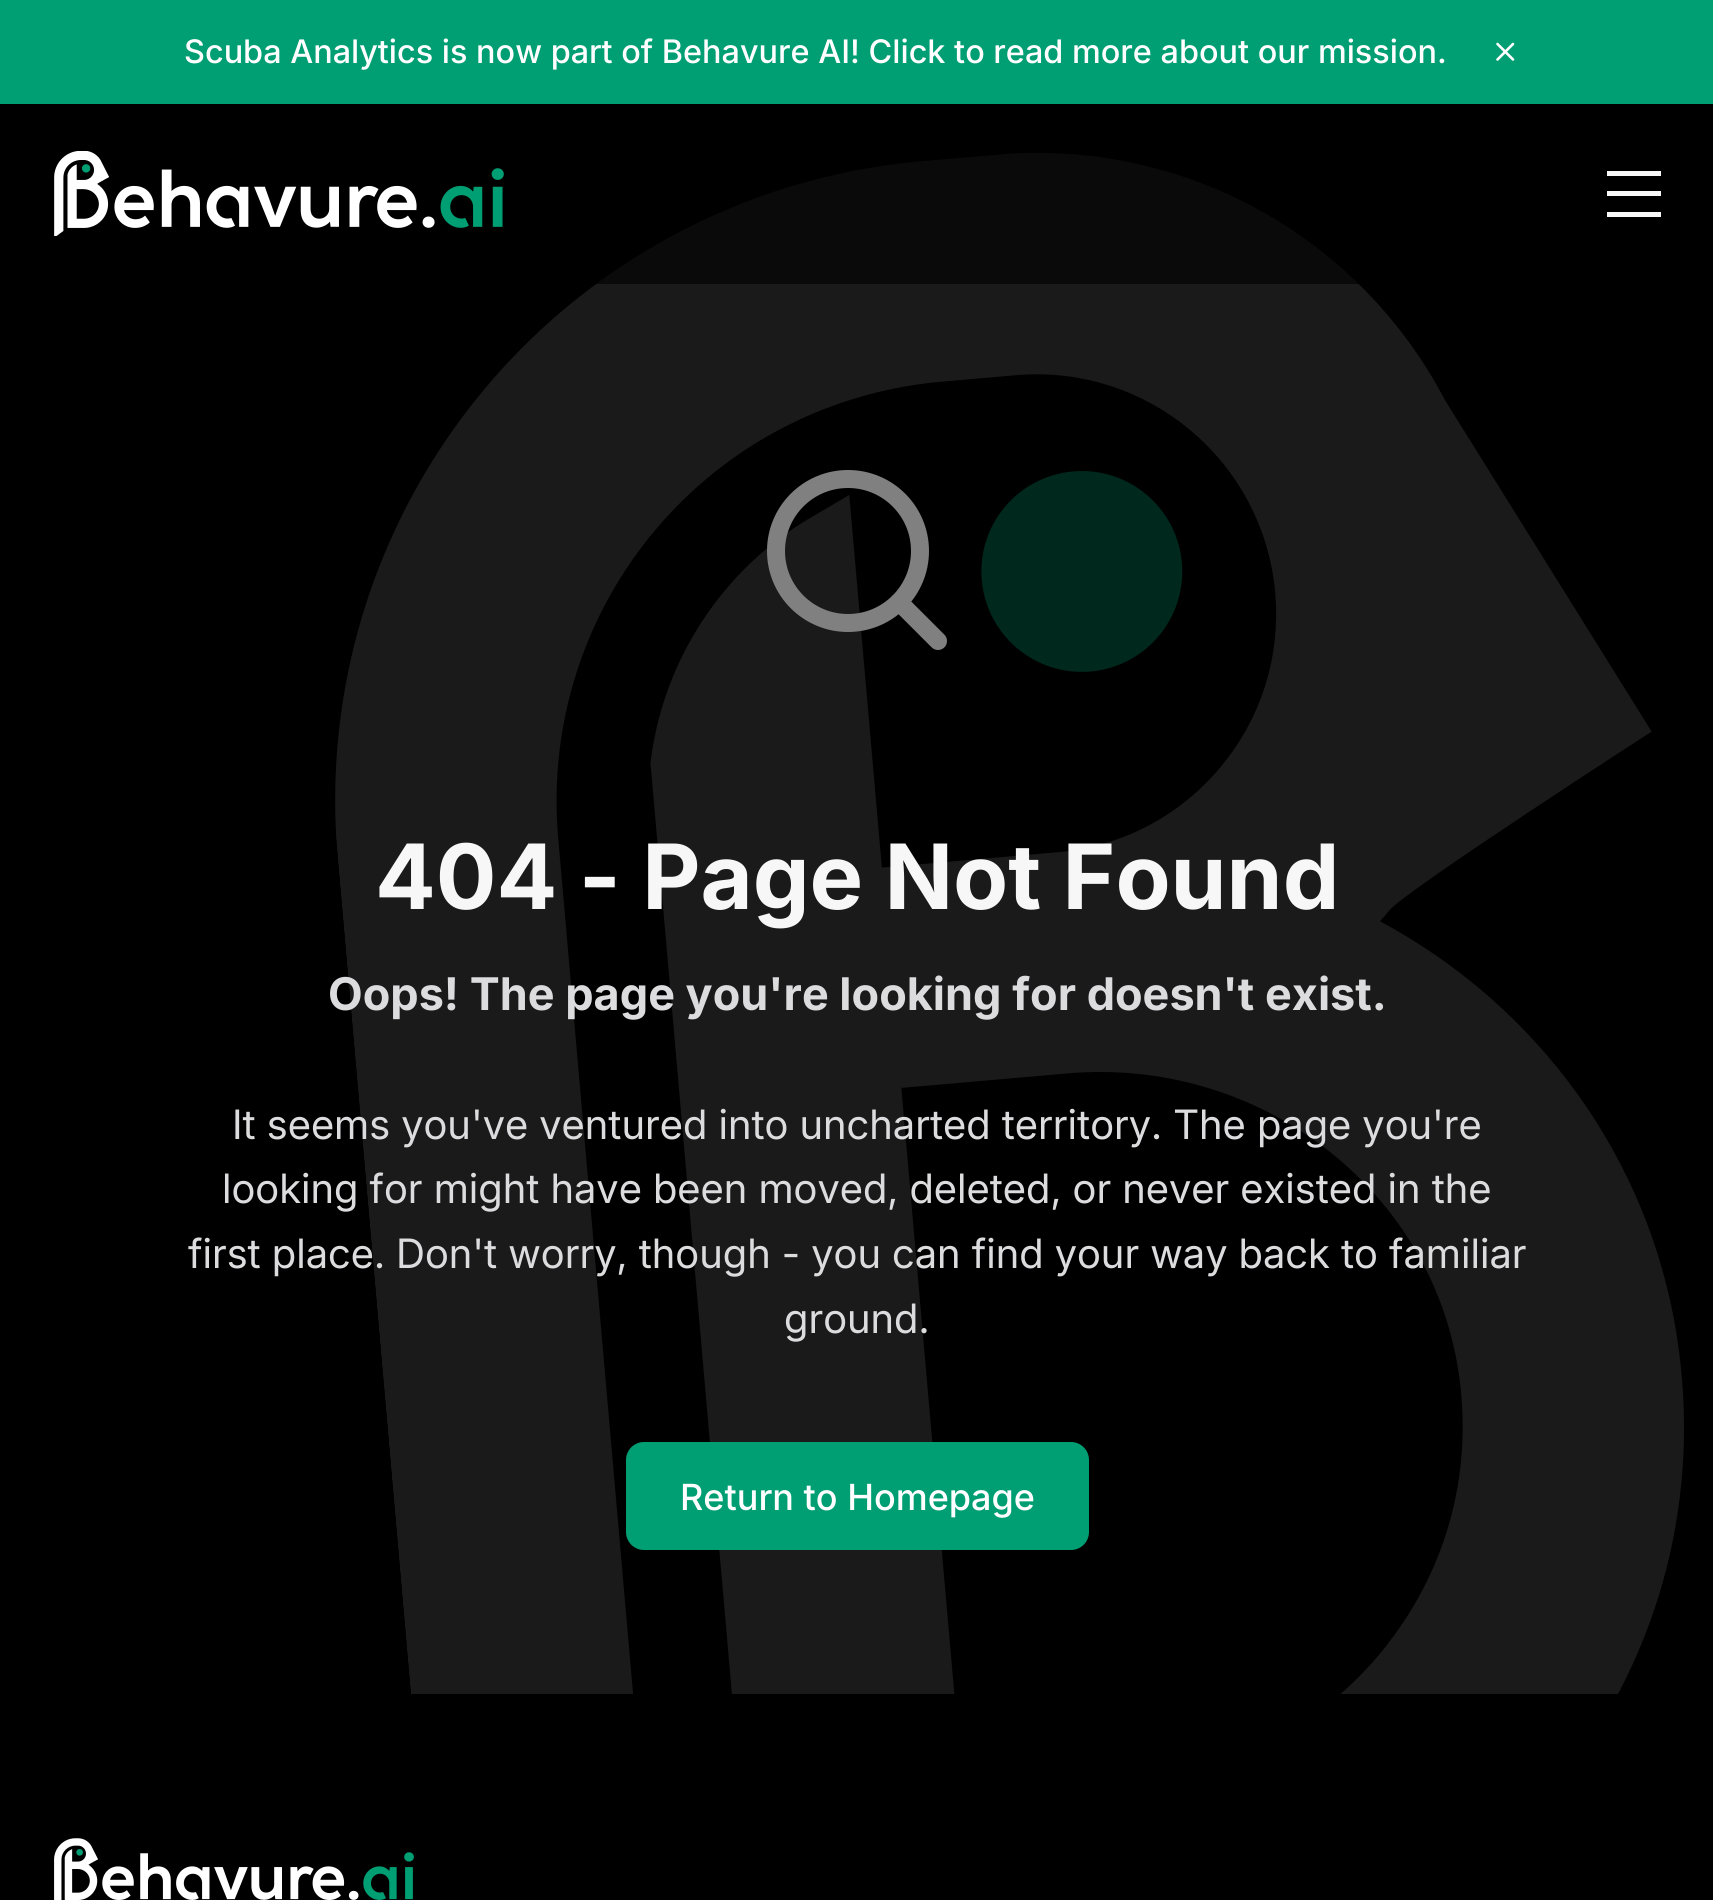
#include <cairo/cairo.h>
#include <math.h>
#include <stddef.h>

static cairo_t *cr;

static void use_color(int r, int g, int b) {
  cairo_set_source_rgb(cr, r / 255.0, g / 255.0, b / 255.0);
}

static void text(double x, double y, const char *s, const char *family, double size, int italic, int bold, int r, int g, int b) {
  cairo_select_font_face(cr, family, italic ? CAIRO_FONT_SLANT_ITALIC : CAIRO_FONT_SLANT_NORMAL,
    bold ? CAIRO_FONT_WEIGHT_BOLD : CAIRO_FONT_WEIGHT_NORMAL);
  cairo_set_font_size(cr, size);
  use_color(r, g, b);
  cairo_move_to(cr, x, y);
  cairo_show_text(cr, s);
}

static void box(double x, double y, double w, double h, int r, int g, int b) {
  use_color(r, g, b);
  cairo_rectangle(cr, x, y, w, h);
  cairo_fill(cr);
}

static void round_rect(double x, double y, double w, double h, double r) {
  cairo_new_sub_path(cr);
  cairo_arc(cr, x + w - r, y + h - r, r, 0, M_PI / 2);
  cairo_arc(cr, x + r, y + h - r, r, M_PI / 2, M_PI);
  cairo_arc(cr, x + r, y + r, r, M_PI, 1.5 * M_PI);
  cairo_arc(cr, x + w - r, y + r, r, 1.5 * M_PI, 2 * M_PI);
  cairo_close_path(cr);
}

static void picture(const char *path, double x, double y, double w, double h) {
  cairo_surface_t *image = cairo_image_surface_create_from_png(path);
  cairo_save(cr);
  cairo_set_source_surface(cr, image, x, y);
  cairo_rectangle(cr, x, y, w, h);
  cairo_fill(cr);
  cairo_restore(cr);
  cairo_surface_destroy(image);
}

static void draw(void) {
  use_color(0, 0, 0);
  cairo_paint(cr);
  box(0, 0, 1713, 104, 0, 158, 115);
  cairo_new_path(cr);
  cairo_move_to(cr, 1513, 44);
  cairo_line_to(cr, 1497.5, 59.5);
  cairo_move_to(cr, 1497.5, 44);
  cairo_line_to(cr, 1513, 59.5);
  use_color(255, 255, 255);
  cairo_set_line_width(cr, 2.6);
  cairo_set_line_cap(cr, CAIRO_LINE_CAP_ROUND);
  cairo_set_line_join(cr, CAIRO_LINE_JOIN_ROUND);
  cairo_stroke(cr);
  picture("img_01.png", 335, 153, 1349, 1541);
  cairo_set_source_rgba(cr, 0, 0, 0, 0.6);
  cairo_rectangle(cr, 596, 153, 763, 131);
  cairo_fill(cr);
  picture("img_02.png", 54, 151, 450, 85);
  box(1607, 171, 54, 5, 247, 247, 248);
  box(1607, 191, 54, 5, 247, 247, 248);
  box(1607, 212, 54, 5, 247, 247, 248);
  cairo_arc(cr, 848, 551, 72, 0, 2 * M_PI);
  use_color(128, 128, 128);
  cairo_set_line_width(cr, 18);
  cairo_set_line_cap(cr, CAIRO_LINE_CAP_BUTT);
  cairo_set_line_join(cr, CAIRO_LINE_JOIN_MITER);
  cairo_stroke(cr);
  cairo_new_path(cr);
  cairo_move_to(cr, 938, 641);
  cairo_line_to(cr, 899, 602);
  cairo_set_line_cap(cr, CAIRO_LINE_CAP_ROUND);
  cairo_set_line_join(cr, CAIRO_LINE_JOIN_ROUND);
  cairo_stroke(cr);
  use_color(0, 158, 115);
  round_rect(626, 1442, 463, 108, 18);
  cairo_fill(cr);
  picture("img_03.png", 54, 1838, 360, 62);
  text(184, 63, "Scuba Analytics is now part of Behavure AI! Click to read more about our mission.", "Inter Medium", 32.4, 0, 0, 255, 255, 255);
  text(375, 909, "404 - Page Not Found", "Inter", 90, 0, 1, 247, 247, 248);
  text(328, 1010, "Oops! The page you're looking for doesn't exist.", "Inter", 45, 0, 1, 220, 220, 222);
  text(232, 1139, "It seems you've ventured into uncharted territory. The page you're", "Inter", 40.5, 0, 0, 220, 220, 222);
  text(222, 1203, "looking for might have been moved, deleted, or never existed in the", "Inter", 40.5, 0, 0, 220, 220, 222);
  text(188, 1268, "first place. Don't worry, though - you can find your way back to familiar", "Inter", 40.5, 0, 0, 220, 220, 222);
  text(784, 1333, "ground.", "Inter", 40.5, 0, 0, 220, 220, 222);
  text(680, 1510, "Return to Homepage", "Inter Medium", 36, 0, 0, 255, 255, 255);
}

int main(void) {
  cairo_surface_t *surface = cairo_image_surface_create(CAIRO_FORMAT_RGB24, 1713, 1900);
  cr = cairo_create(surface);
  cairo_font_options_t *options = cairo_font_options_create();
  cairo_font_options_set_hint_metrics(options, CAIRO_HINT_METRICS_OFF);
  cairo_font_options_set_hint_style(options, CAIRO_HINT_STYLE_NONE);
  cairo_set_font_options(cr, options);
  cairo_set_miter_limit(cr, 4);
  draw();
  cairo_surface_write_to_png(surface, "out.png");
  cairo_font_options_destroy(options);
  cairo_destroy(cr);
  cairo_surface_destroy(surface);
  return 0;
}
